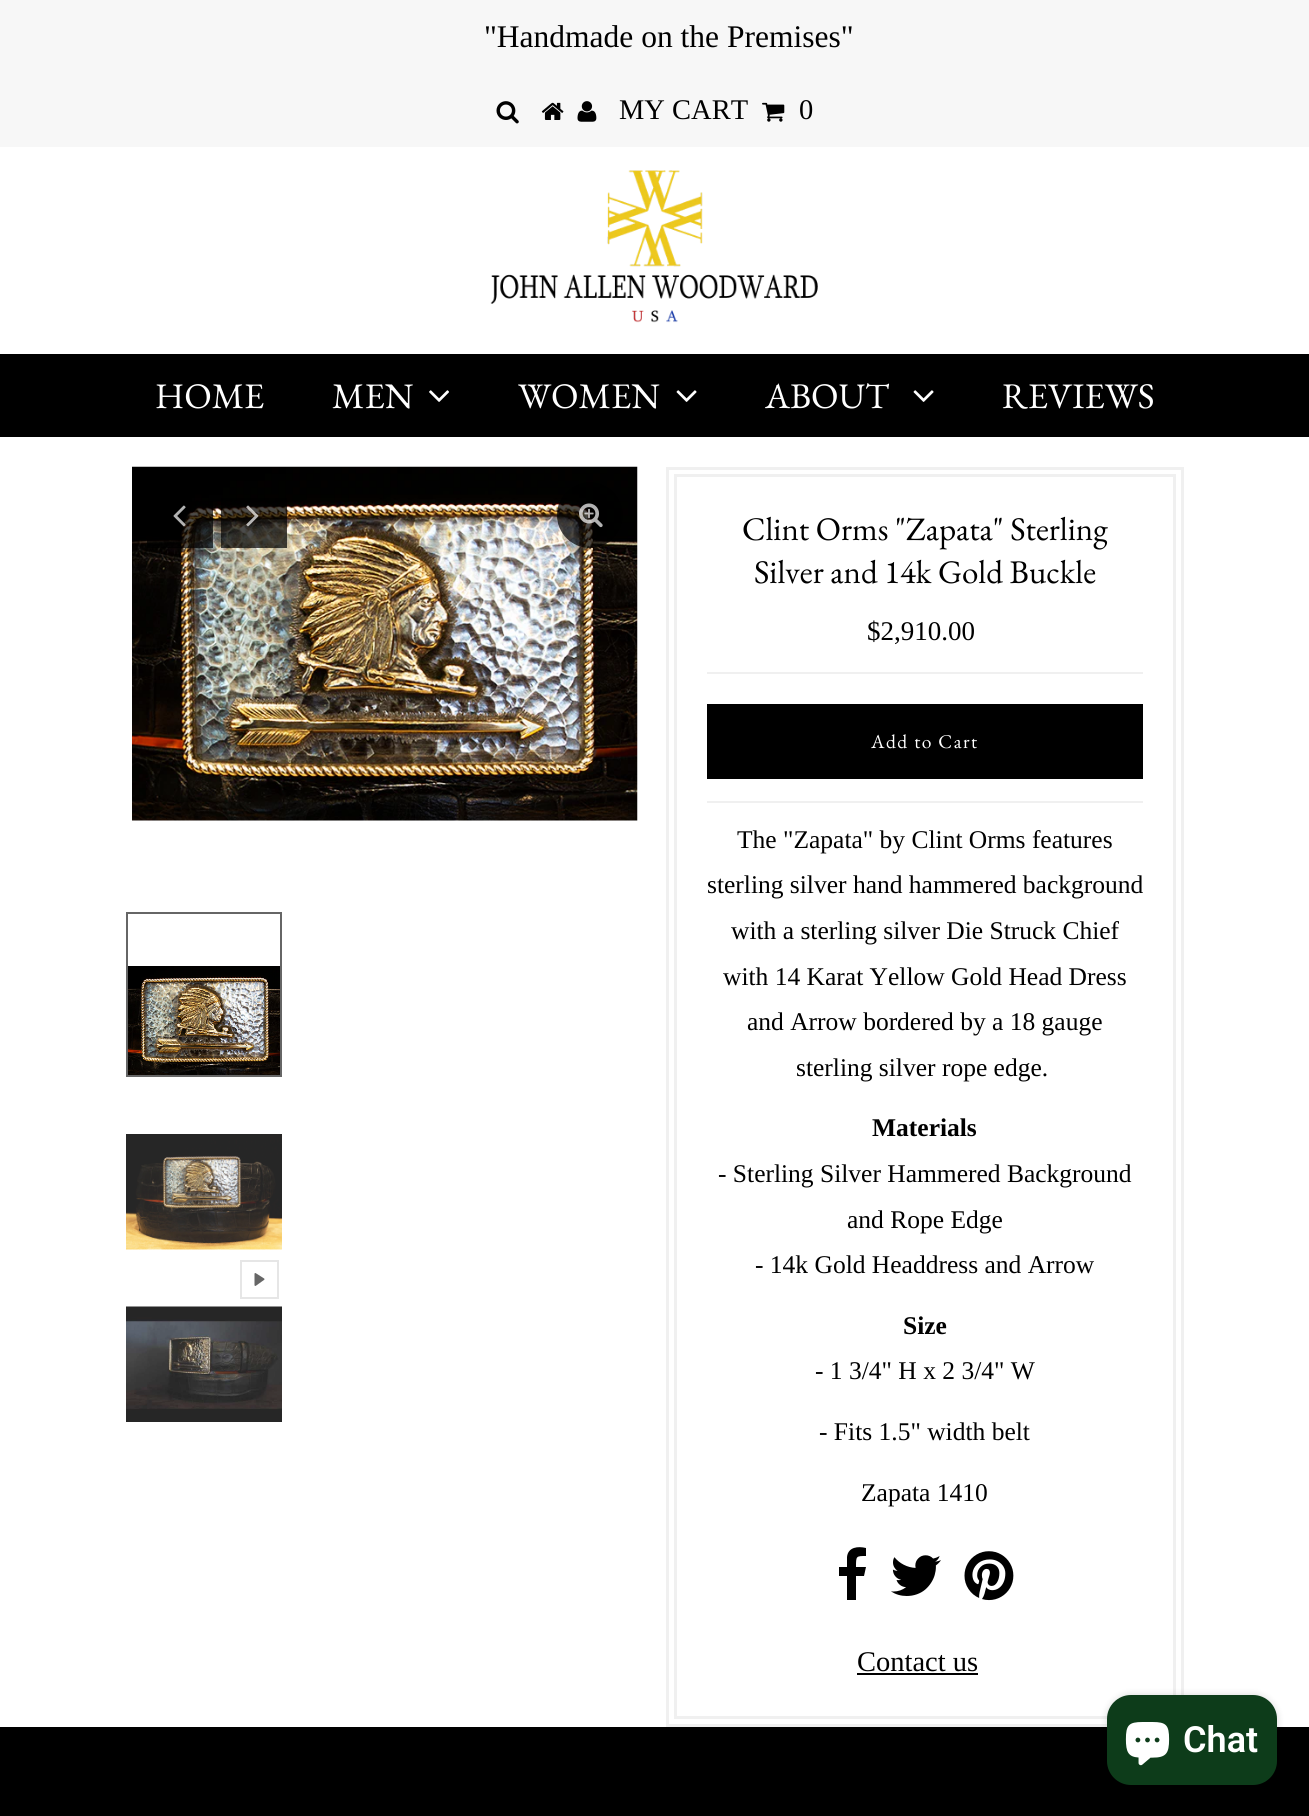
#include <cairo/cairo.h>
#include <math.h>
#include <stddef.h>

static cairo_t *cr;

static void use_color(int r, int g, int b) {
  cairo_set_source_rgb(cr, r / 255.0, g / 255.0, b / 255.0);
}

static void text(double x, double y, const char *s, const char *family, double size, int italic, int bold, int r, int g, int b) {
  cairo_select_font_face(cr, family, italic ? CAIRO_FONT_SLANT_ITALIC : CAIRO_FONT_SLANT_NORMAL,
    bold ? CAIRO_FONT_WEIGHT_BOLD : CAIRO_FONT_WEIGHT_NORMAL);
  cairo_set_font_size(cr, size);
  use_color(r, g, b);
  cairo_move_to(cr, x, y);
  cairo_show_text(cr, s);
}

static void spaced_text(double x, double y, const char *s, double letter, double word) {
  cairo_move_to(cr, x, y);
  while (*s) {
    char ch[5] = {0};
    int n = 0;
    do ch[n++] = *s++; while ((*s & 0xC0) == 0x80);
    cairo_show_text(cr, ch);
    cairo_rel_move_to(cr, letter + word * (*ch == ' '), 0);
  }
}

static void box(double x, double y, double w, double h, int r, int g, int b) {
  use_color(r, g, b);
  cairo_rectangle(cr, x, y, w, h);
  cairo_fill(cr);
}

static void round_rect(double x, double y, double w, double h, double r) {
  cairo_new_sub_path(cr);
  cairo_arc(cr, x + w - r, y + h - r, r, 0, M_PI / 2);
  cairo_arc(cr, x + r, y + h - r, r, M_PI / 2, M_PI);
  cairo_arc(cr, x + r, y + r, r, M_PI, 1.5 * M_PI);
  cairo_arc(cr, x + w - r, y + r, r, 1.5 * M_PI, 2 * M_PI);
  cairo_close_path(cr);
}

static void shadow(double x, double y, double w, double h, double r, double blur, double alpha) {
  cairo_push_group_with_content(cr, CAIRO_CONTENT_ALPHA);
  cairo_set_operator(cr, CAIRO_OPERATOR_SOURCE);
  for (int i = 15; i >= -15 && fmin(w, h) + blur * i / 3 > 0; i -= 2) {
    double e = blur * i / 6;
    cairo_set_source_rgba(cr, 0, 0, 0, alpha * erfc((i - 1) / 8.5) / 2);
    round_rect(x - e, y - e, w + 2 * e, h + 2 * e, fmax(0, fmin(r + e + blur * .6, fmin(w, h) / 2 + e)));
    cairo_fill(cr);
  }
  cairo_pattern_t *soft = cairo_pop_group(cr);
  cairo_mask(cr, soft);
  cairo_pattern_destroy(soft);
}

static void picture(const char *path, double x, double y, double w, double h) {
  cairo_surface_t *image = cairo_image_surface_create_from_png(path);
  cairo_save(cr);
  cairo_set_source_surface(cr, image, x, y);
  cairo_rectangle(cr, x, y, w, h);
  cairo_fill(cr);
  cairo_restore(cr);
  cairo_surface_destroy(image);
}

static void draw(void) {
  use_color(255, 255, 255);
  cairo_paint(cr);
  box(0, 0, 1309, 147, 247, 247, 247);
  picture("img_01.png", 496, 101, 23, 23);
  picture("img_02.png", 541, 102, 23, 18);
  picture("img_03.png", 577, 101, 20, 21);
  picture("img_04.png", 762, 102, 23, 20);
  picture("img_05.png", 490, 170, 328, 153);
  box(0, 354, 1309, 83, 0, 0, 0);
  picture("img_06.png", 429, 390, 20, 12);
  picture("img_07.png", 676, 390, 21, 12);
  picture("img_07.png", 913, 390, 21, 12);
  picture("img_08.png", 132, 466, 506, 355);
  cairo_set_source_rgba(cr, 0, 0, 0, 0.7);
  cairo_arc(cr, 590, 515, 33, 0, 2 * M_PI);
  cairo_fill(cr);
  picture("img_09.png", 579, 503, 24, 25);
  cairo_rectangle(cr, 147, 501, 66, 47);
  cairo_fill(cr);
  picture("img_10.png", 173, 505, 13, 22);
  cairo_rectangle(cr, 221, 498, 66, 50);
  cairo_fill(cr);
  picture("img_11.png", 246, 505, 13, 22);
  picture("img_12.png", 128, 966, 152, 109);
  cairo_rectangle(cr, 127, 913, 154, 163);
  use_color(102, 102, 102);
  cairo_stroke(cr);
  picture("img_13.png", 126, 1134, 156, 116);
  cairo_rectangle(cr, 241, 1261, 37, 37);
  use_color(230, 230, 230);
  cairo_stroke(cr);
  picture("img_14.png", 254, 1273, 11, 13);
  picture("img_15.png", 126, 1306, 156, 116);
  cairo_rectangle(cr, 667.5, 468.5, 515, 1257);
  use_color(240, 240, 240);
  cairo_set_line_width(cr, 3);
  cairo_stroke(cr);
  cairo_rectangle(cr, 675.5, 475.5, 499, 1242);
  cairo_stroke(cr);
  box(707, 801, 436, 2, 240, 240, 240);
  box(707, 672, 436, 2, 240, 240, 240);
  box(707, 704, 436, 75, 0, 0, 0);
  cairo_new_path(cr);
  cairo_move_to(cr, 866, 1548);
  cairo_line_to(cr, 866, 1556);
  cairo_curve_to(cr, 856, 1556, 856, 1556, 856, 1567);
  cairo_line_to(cr, 866, 1567);
  cairo_line_to(cr, 864, 1576);
  cairo_line_to(cr, 856, 1576);
  cairo_line_to(cr, 856, 1600);
  cairo_line_to(cr, 847, 1600);
  cairo_line_to(cr, 847, 1576);
  cairo_line_to(cr, 839, 1576);
  cairo_line_to(cr, 839, 1567);
  cairo_line_to(cr, 847, 1567);
  cairo_line_to(cr, 847, 1557);
  cairo_curve_to(cr, 848, 1547, 858, 1546, 866, 1548);
  cairo_close_path(cr);
  cairo_fill(cr);
  picture("img_16.png", 891, 1555, 50, 41);
  picture("img_17.png", 964, 1551, 50, 50);
  box(857, 1673, 121, 2, 0, 0, 0);
  box(0, 1727, 1309, 89, 0, 0, 0);
  use_color(0, 0, 0);
  shadow(1107, 1695, 170, 90, 24, 4, 0.15);
  use_color(13, 60, 26);
  round_rect(1107, 1695, 170, 90, 24);
  cairo_fill(cr);
  picture("img_18.png", 1125, 1722, 45, 44);
  text(484, 47, "\"Handmade on the Premises\"", "Liberation Serif", 31.5, 0, 0, 0, 0, 0);
  text(619, 119, "MY CART", "Liberation Serif", 28.5, 0, 0, 0, 0, 0);
  text(799, 119, "0", "Liberation Serif", 28.5, 0, 0, 0, 0, 0);
  text(155, 408, "HOME", "EB Garamond", 36, 0, 0, 255, 255, 255);
  text(332, 408, "MEN", "EB Garamond", 36, 0, 0, 255, 255, 255);
  text(518, 408, "WOMEN", "EB Garamond", 36, 0, 0, 255, 255, 255);
  text(765, 408, "ABOUT", "EB Garamond", 36, 0, 0, 255, 255, 255);
  text(1002, 408, "REVIEWS", "EB Garamond", 36, 0, 0, 255, 255, 255);
  text(742, 540, "Clint Orms \"Zapata\" Sterling", "EB Garamond", 33, 0, 0, 0, 0, 0);
  text(754, 583, "Silver and 14k Gold Buckle", "EB Garamond", 33, 0, 0, 0, 0, 0);
  text(867, 640, "$2,910.00", "Liberation Serif", 27, 0, 0, 0, 0, 0);
  cairo_select_font_face(cr, "EB Garamond", CAIRO_FONT_SLANT_NORMAL, CAIRO_FONT_WEIGHT_NORMAL);
  cairo_set_font_size(cr, 19.5);
  use_color(255, 255, 255);
  spaced_text(871, 748, "Add to Cart", 1.5, 0);
  text(737, 848, "The \"Zapata\" by Clint Orms features", "Liberation Serif", 25.5, 0, 0, 0, 0, 0);
  text(707, 893, "sterling silver hand hammered background", "Liberation Serif", 25.5, 0, 0, 0, 0, 0);
  text(731, 939, "with a sterling silver Die Struck Chief", "Liberation Serif", 25.5, 0, 0, 0, 0, 0);
  text(723, 985, "with 14 Karat Yellow Gold Head Dress", "Liberation Serif", 25.5, 0, 0, 0, 0, 0);
  text(747, 1030, "and Arrow bordered by a 18 gauge", "Liberation Serif", 25.5, 0, 0, 0, 0, 0);
  text(796, 1076, "sterling silver rope edge.", "Liberation Serif", 25.5, 0, 0, 0, 0, 0);
  text(872, 1136, "Materials", "Liberation Serif", 25.5, 0, 1, 0, 0, 0);
  text(718, 1182, "- Sterling Silver Hammered Background", "Liberation Serif", 25.5, 0, 0, 0, 0, 0);
  text(847, 1228, "and Rope Edge", "Liberation Serif", 25.5, 0, 0, 0, 0, 0);
  text(755, 1273, "- 14k Gold Headdress and Arrow", "Liberation Serif", 25.5, 0, 0, 0, 0, 0);
  text(903, 1334, "Size", "Liberation Serif", 25.5, 0, 1, 0, 0, 0);
  text(815, 1379, "- 1 3/4\" H x 2 3/4\" W", "Liberation Serif", 25.5, 0, 0, 0, 0, 0);
  text(819, 1440, "- Fits 1.5\" width belt", "Liberation Serif", 25.5, 0, 0, 0, 0, 0);
  text(861, 1501, "Zapata 1410", "Liberation Serif", 25.5, 0, 0, 0, 0, 0);
  text(857, 1671, "Contact us", "Liberation Serif", 28.5, 0, 0, 0, 0, 0);
  text(1183, 1752, "Chat", "Roboto SemiBold", 36, 0, 0, 255, 255, 255);
}

int main(void) {
  cairo_surface_t *surface = cairo_image_surface_create(CAIRO_FORMAT_RGB24, 1309, 1816);
  cr = cairo_create(surface);
  cairo_font_options_t *options = cairo_font_options_create();
  cairo_font_options_set_hint_metrics(options, CAIRO_HINT_METRICS_OFF);
  cairo_font_options_set_hint_style(options, CAIRO_HINT_STYLE_NONE);
  cairo_set_font_options(cr, options);
  cairo_set_miter_limit(cr, 4);
  draw();
  cairo_surface_write_to_png(surface, "out.png");
  cairo_font_options_destroy(options);
  cairo_destroy(cr);
  cairo_surface_destroy(surface);
  return 0;
}
